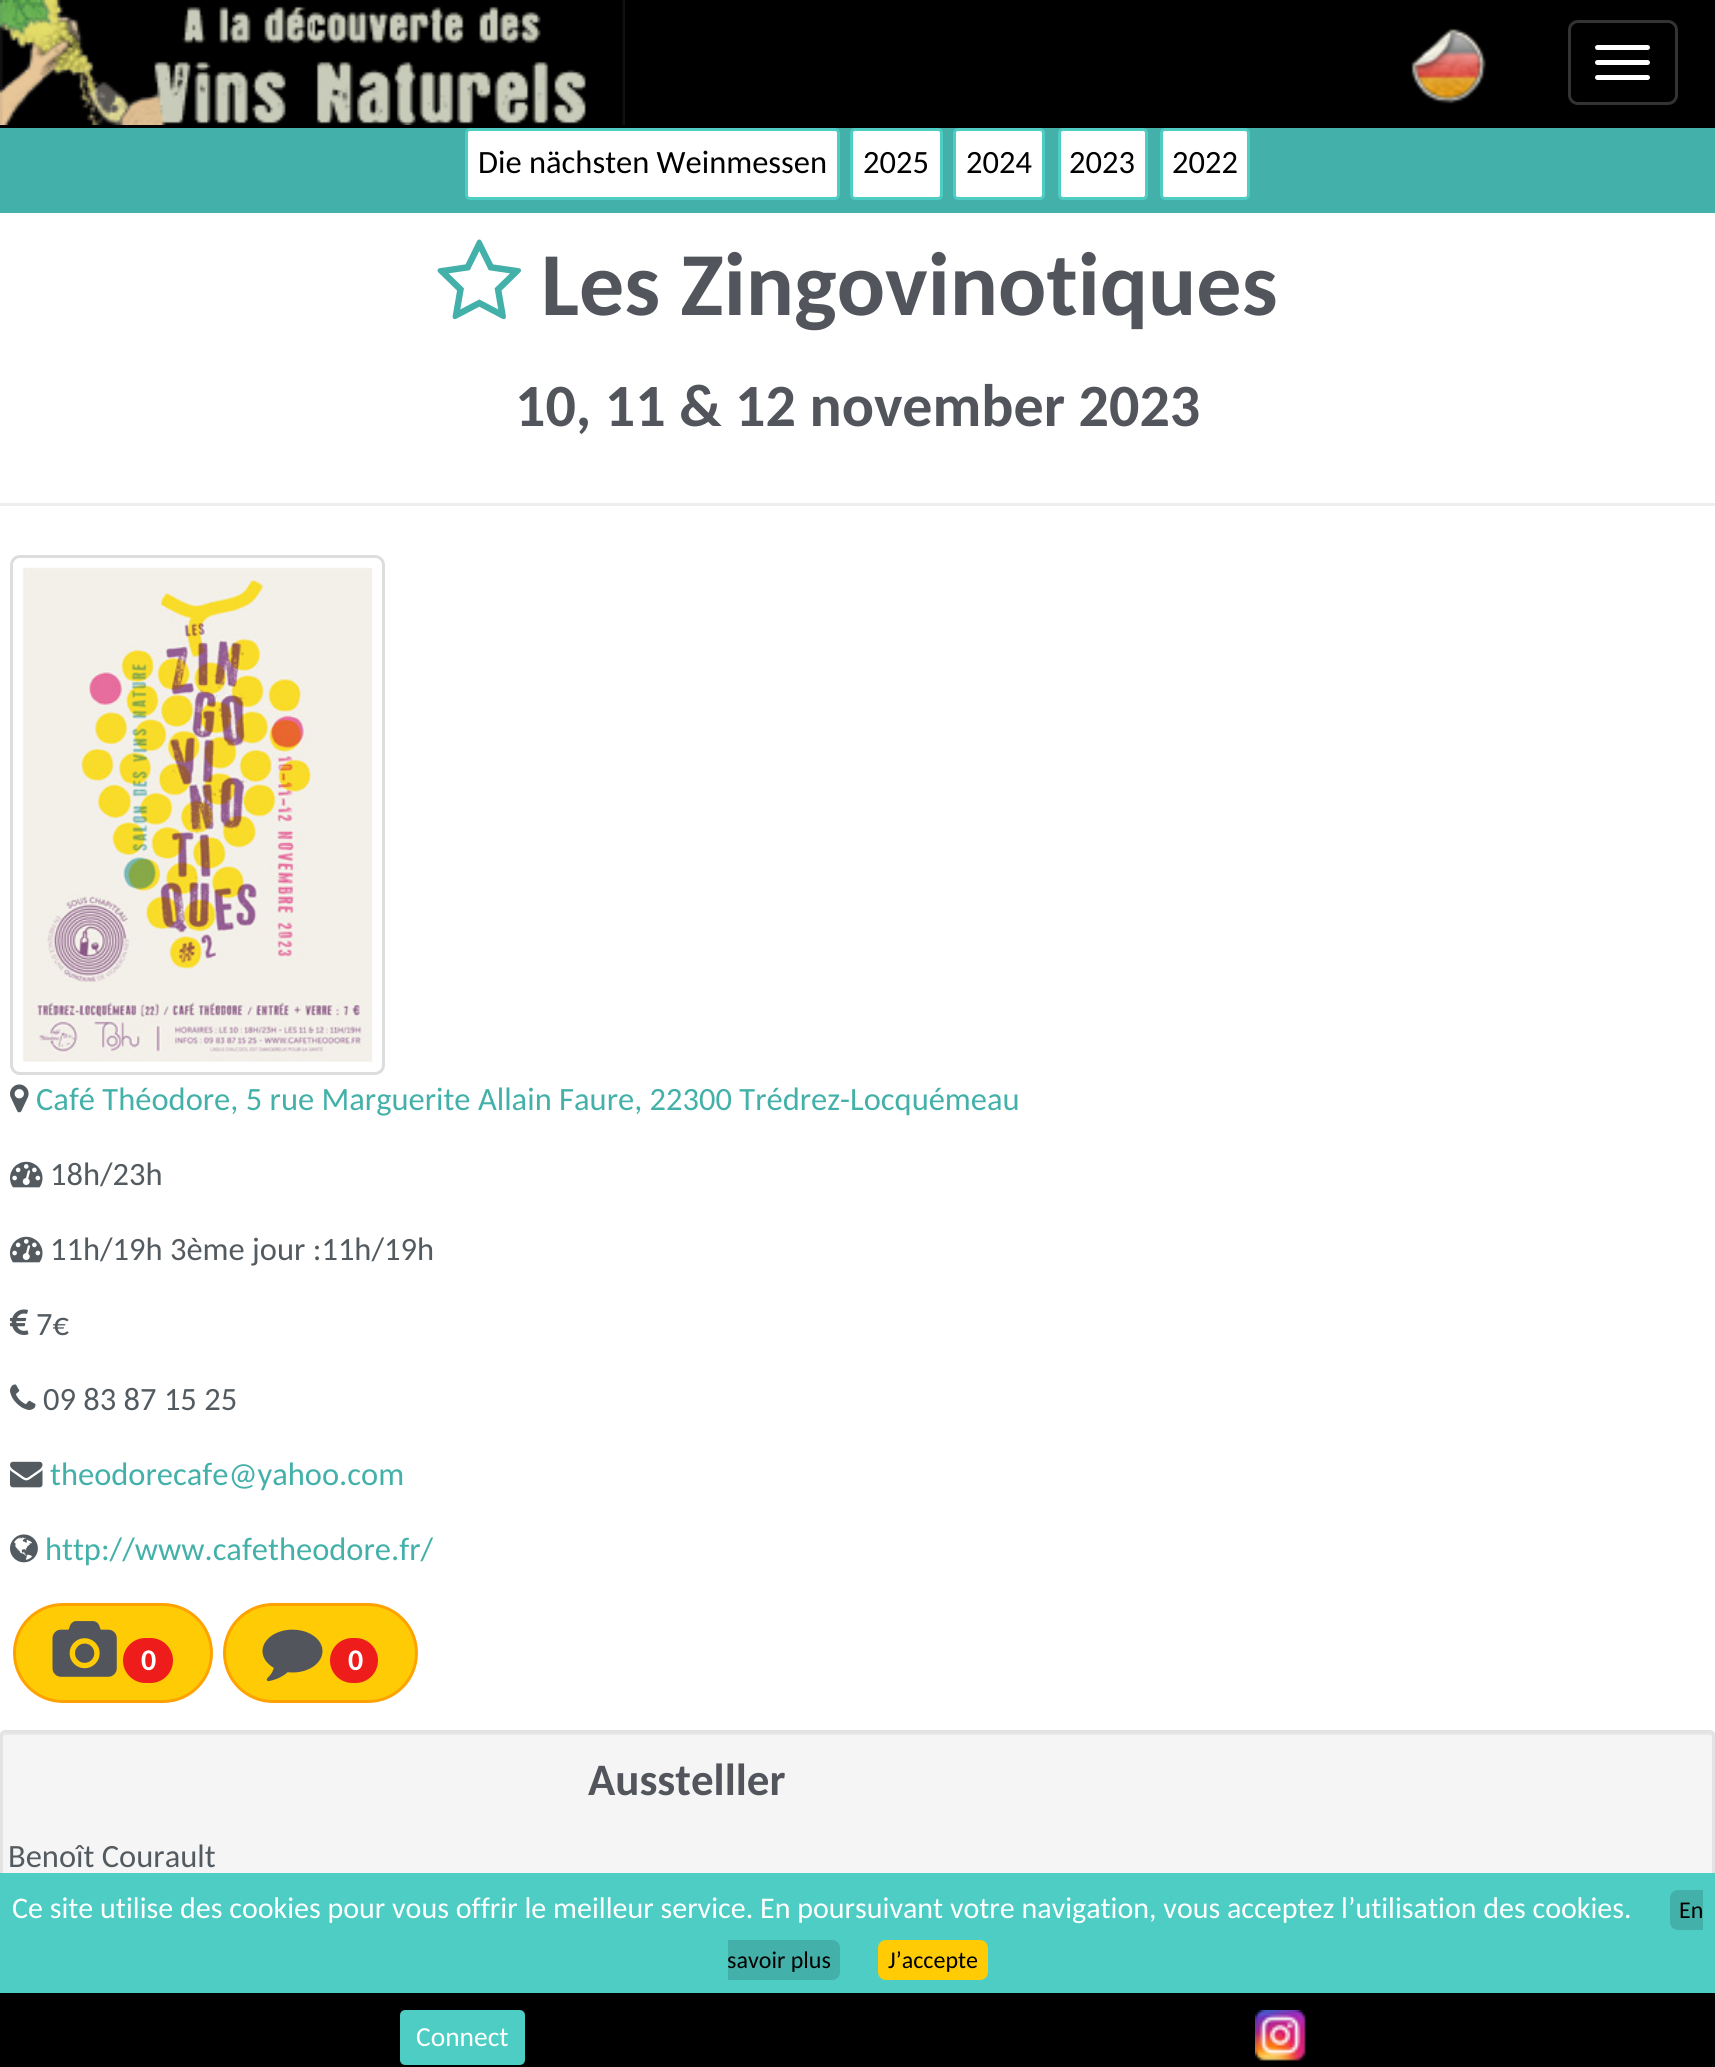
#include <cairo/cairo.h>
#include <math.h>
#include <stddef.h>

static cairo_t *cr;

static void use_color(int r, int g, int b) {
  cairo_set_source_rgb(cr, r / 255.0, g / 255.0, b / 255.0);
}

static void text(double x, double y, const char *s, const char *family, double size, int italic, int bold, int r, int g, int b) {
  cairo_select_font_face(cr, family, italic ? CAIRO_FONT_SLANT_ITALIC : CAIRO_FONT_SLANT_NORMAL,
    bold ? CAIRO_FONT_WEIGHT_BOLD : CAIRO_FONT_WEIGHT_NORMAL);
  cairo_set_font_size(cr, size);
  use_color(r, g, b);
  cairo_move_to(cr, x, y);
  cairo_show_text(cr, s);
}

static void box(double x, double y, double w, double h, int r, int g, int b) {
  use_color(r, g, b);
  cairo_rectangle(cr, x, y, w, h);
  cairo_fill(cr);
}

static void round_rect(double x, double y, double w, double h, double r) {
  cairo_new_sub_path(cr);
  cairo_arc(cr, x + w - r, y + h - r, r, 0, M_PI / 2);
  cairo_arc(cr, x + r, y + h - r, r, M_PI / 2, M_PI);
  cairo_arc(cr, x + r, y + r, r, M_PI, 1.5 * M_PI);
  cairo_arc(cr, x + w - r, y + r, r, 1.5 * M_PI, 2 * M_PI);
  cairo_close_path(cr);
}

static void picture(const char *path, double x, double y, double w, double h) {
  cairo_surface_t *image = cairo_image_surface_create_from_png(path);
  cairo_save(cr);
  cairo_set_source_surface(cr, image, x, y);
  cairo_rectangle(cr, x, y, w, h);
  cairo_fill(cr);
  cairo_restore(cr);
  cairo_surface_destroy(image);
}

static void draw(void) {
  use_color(0, 0, 0);
  cairo_paint(cr);
  picture("img_01.png", 0, 0, 625, 125);
  round_rect(1569.5, 21.5, 107, 82, 8.5);
  use_color(51, 51, 51);
  cairo_set_line_width(cr, 3);
  cairo_stroke(cr);
  use_color(255, 255, 255);
  round_rect(1595, 45, 55, 5, 2.5);
  cairo_fill(cr);
  round_rect(1595, 60, 55, 5, 2.5);
  cairo_fill(cr);
  round_rect(1595, 75, 55, 5, 2.5);
  cairo_fill(cr);
  picture("img_02.png", 1411, 28, 76, 76);
  box(0, 128, 1715, 85, 67, 177, 169);
  use_color(255, 255, 255);
  round_rect(466.5, 129.5, 372, 69, 3.5);
  cairo_fill_preserve(cr);
  use_color(78, 205, 196);
  cairo_stroke(cr);
  use_color(255, 255, 255);
  round_rect(851.5, 129.5, 90, 69, 3.5);
  cairo_fill_preserve(cr);
  use_color(78, 205, 196);
  cairo_stroke(cr);
  box(956, 131, 86, 66, 255, 255, 255);
  round_rect(954.5, 129.5, 89, 69, 3.5);
  use_color(78, 205, 196);
  cairo_stroke(cr);
  use_color(255, 255, 255);
  round_rect(1059.5, 129.5, 87, 69, 3.5);
  cairo_fill_preserve(cr);
  use_color(78, 205, 196);
  cairo_stroke(cr);
  use_color(255, 255, 255);
  round_rect(1161.5, 129.5, 87, 69, 3.5);
  cairo_fill_preserve(cr);
  use_color(78, 205, 196);
  cairo_stroke(cr);
  box(0, 213, 1715, 1522, 255, 255, 255);
  picture("img_03.png", 437, 239, 85, 81);
  box(0, 503, 1715, 3, 238, 238, 238);
  round_rect(11.5, 556.5, 372, 517, 8.5);
  use_color(221, 221, 221);
  cairo_stroke(cr);
  picture("img_04.png", 22, 567, 351, 495);
  picture("img_05.png", 10, 1084, 19, 29);
  picture("img_06.png", 10, 1161, 33, 27);
  picture("img_06.png", 10, 1236, 33, 27);
  picture("img_07.png", 10, 1309, 19, 26);
  picture("img_08.png", 10, 1384, 26, 26);
  picture("img_09.png", 10, 1461, 33, 27);
  picture("img_10.png", 10, 1534, 28, 29);
  use_color(255, 203, 5);
  round_rect(14.5, 1604.5, 197, 97, 48.5);
  cairo_fill_preserve(cr);
  use_color(255, 162, 0);
  cairo_stroke(cr);
  picture("img_11.png", 52, 1621, 65, 56);
  use_color(239, 28, 28);
  round_rect(123, 1638, 50, 45, 22.5);
  cairo_fill(cr);
  use_color(255, 203, 5);
  round_rect(224.5, 1604.5, 192, 97, 48.5);
  cairo_fill_preserve(cr);
  use_color(255, 162, 0);
  cairo_stroke(cr);
  picture("img_12.png", 262, 1629, 61, 53);
  use_color(239, 28, 28);
  round_rect(330, 1638, 48, 45, 22.5);
  cairo_fill(cr);
  use_color(245, 245, 245);
  round_rect(0, 1730, 1715, 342, 5);
  cairo_fill(cr);
  use_color(233, 233, 233);
  cairo_new_path(cr);
  cairo_move_to(cr, 5, 1735);
  cairo_line_to(cr, 1710, 1735);
  cairo_curve_to(cr, 1711, 1735, 1712, 1736, 1712, 1738);
  cairo_line_to(cr, 1712, 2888);
  cairo_curve_to(cr, 1713, 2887, 1713, 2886, 1713, 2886);
  cairo_line_to(cr, 1713, 1736);
  cairo_curve_to(cr, 1713, 1734, 1712, 1733, 1710, 1733);
  cairo_line_to(cr, 6, 1733);
  cairo_curve_to(cr, 4, 1733, 3, 1734, 3, 1736);
  cairo_close_path(cr);
  cairo_fill(cr);
  round_rect(1.5, 1731.5, 1712, 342, 3.5);
  use_color(227, 227, 227);
  cairo_stroke(cr);
  box(0, 1993, 1715, 74, 0, 0, 0);
  use_color(78, 205, 196);
  round_rect(401.5, 2011.5, 122, 52, 3.5);
  cairo_fill_preserve(cr);
  cairo_stroke(cr);
  picture("img_13.png", 1255, 2010, 51, 51);
  box(0, 1873, 1715, 120, 78, 205, 196);
  use_color(67, 177, 169);
  cairo_new_path(cr);
  cairo_move_to(cr, 1678, 1890);
  cairo_line_to(cr, 1703, 1890);
  cairo_line_to(cr, 1703, 1930);
  cairo_line_to(cr, 1678, 1930);
  cairo_curve_to(cr, 1673.5, 1930, 1670, 1926.5, 1670, 1922);
  cairo_line_to(cr, 1670, 1898);
  cairo_curve_to(cr, 1670, 1893.5, 1673.5, 1890, 1678, 1890);
  cairo_close_path(cr);
  cairo_fill(cr);
  cairo_new_path(cr);
  cairo_move_to(cr, 728, 1940);
  cairo_line_to(cr, 832, 1940);
  cairo_curve_to(cr, 836.5, 1940, 840, 1943.5, 840, 1948);
  cairo_line_to(cr, 840, 1972);
  cairo_curve_to(cr, 840, 1976.5, 836.5, 1980, 832, 1980);
  cairo_line_to(cr, 728, 1980);
  cairo_close_path(cr);
  cairo_fill(cr);
  use_color(255, 203, 5);
  round_rect(878, 1940, 110, 40, 8);
  cairo_fill(cr);
  text(478, 173, "Die nächsten Weinmessen", "Carlito", 32.5, 0, 0, 0, 0, 0);
  text(863, 173, "2025", "Carlito", 32.5, 0, 0, 0, 0, 0);
  text(966, 173, "2024", "Carlito", 32.5, 0, 0, 0, 0, 0);
  text(1069, 173, "2023", "Carlito", 32.5, 0, 0, 0, 0, 0);
  text(1172, 173, "2022", "Carlito", 32.5, 0, 0, 0, 0, 0);
  text(541, 315, "Les Zingovinotiques", "Carlito", 90, 0, 1, 83, 85, 92);
  text(515, 426, "10, 11 & 12 november 2023", "Carlito", 60, 0, 1, 83, 85, 92);
  text(36, 1110, "Café Théodore, 5 rue Marguerite Allain Faure, 22300 Trédrez-Locquémeau", "Carlito", 32.5, 0, 0, 67, 177, 169);
  text(50, 1185, "18h/23h", "Carlito", 32.5, 0, 0, 83, 91, 96);
  text(50, 1260, "11h/19h 3ème jour :11h/19h", "Carlito", 32.5, 0, 0, 83, 91, 96);
  text(36, 1335, "7€", "Carlito", 32.5, 0, 0, 83, 91, 96);
  text(43, 1410, "09 83 87 15 25", "Carlito", 32.5, 0, 0, 83, 91, 96);
  text(50, 1485, "theodorecafe@yahoo.com", "Carlito", 32.5, 0, 0, 67, 177, 169);
  text(45, 1560, "http://www.cafetheodore.fr/", "Carlito", 32.5, 0, 0, 67, 177, 169);
  text(141, 1670, "0", "Carlito", 30, 0, 1, 255, 255, 255);
  text(348, 1670, "0", "Carlito", 30, 0, 1, 255, 255, 255);
  text(588, 1795, "Ausstelller", "Carlito", 45, 0, 1, 83, 85, 92);
  text(8, 1867, "Benoît Courault", "Carlito", 32.5, 0, 0, 83, 91, 96);
  text(416, 2046, "Connect", "Carlito", 27.5, 0, 0, 255, 255, 255);
  text(12, 1918, "Ce site utilise des cookies pour vous offrir le meilleur service. En poursuivant votre navigation, vous acceptez l’utilisation des cookies.", "Carlito", 30, 0, 0, 255, 255, 255);
  text(1679, 1918, "En", "Carlito", 24, 0, 0, 0, 0, 0);
  text(727, 1968, "savoir plus", "Carlito", 24, 0, 0, 0, 0, 0);
  text(888, 1968, "J’accepte", "Carlito", 24, 0, 0, 0, 0, 0);
}

int main(void) {
  cairo_surface_t *surface = cairo_image_surface_create(CAIRO_FORMAT_RGB24, 1715, 2067);
  cr = cairo_create(surface);
  cairo_font_options_t *options = cairo_font_options_create();
  cairo_font_options_set_hint_metrics(options, CAIRO_HINT_METRICS_OFF);
  cairo_font_options_set_hint_style(options, CAIRO_HINT_STYLE_NONE);
  cairo_set_font_options(cr, options);
  cairo_set_miter_limit(cr, 4);
  draw();
  cairo_surface_write_to_png(surface, "out.png");
  cairo_font_options_destroy(options);
  cairo_destroy(cr);
  cairo_surface_destroy(surface);
  return 0;
}
